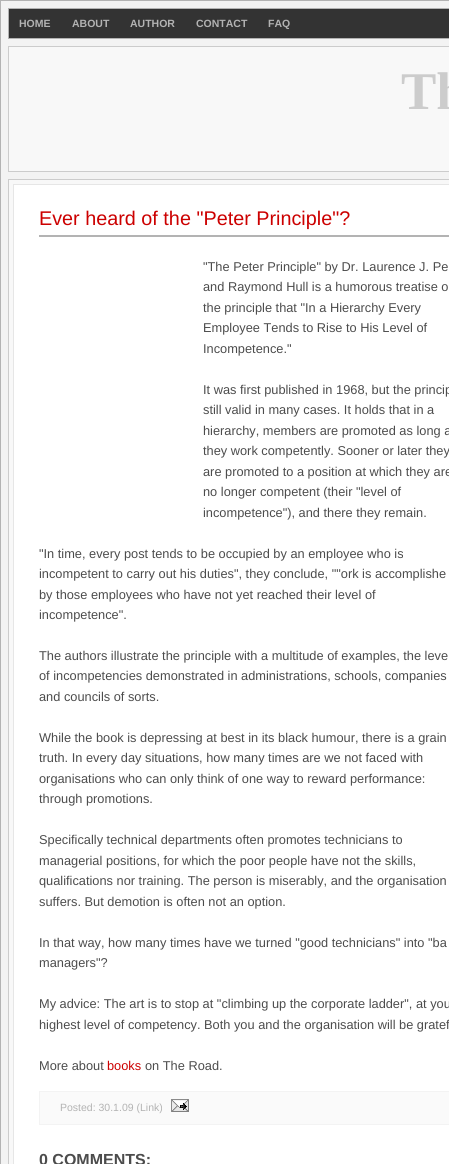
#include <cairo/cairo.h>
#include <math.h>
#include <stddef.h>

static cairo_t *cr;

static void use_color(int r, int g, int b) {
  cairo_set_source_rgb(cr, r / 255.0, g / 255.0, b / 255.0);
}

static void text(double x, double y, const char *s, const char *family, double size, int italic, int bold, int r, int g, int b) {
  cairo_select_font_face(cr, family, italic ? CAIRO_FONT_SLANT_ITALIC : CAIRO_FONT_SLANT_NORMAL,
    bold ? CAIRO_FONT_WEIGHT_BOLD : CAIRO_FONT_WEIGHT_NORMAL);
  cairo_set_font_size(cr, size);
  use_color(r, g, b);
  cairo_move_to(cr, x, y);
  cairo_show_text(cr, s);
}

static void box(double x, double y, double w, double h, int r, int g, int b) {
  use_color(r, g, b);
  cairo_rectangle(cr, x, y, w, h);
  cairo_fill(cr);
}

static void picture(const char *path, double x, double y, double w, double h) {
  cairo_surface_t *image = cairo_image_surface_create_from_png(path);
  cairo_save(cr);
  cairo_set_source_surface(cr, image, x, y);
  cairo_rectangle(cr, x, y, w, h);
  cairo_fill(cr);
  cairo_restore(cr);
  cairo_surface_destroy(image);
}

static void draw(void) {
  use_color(243, 243, 243);
  cairo_paint(cr);
  cairo_rectangle(cr, 0.5, 0.5, 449, 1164);
  use_color(179, 179, 179);
  cairo_set_line_width(cr, 1);
  cairo_stroke(cr);
  use_color(51, 51, 51);
  cairo_rectangle(cr, 8.5, 8.5, 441, 30);
  cairo_fill_preserve(cr);
  use_color(179, 179, 179);
  cairo_stroke(cr);
  use_color(248, 248, 248);
  cairo_rectangle(cr, 8.5, 46.5, 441, 125);
  cairo_fill_preserve(cr);
  use_color(204, 204, 204);
  cairo_stroke(cr);
  use_color(248, 248, 248);
  cairo_rectangle(cr, 8.5, 179.5, 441, 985);
  cairo_fill_preserve(cr);
  use_color(204, 204, 204);
  cairo_stroke(cr);
  use_color(255, 255, 255);
  cairo_rectangle(cr, 13.5, 184.5, 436, 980);
  cairo_fill_preserve(cr);
  use_color(230, 230, 230);
  cairo_stroke(cr);
  box(39, 235, 410, 2, 179, 179, 179);
  use_color(250, 250, 250);
  cairo_rectangle(cr, 39.5, 1091.5, 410, 33);
  cairo_fill_preserve(cr);
  use_color(243, 243, 243);
  cairo_stroke(cr);
  picture("img_01.png", 171, 1099, 18, 13);
  text(19, 27, "HOME", "Liberation Sans", 10.5, 0, 1, 179, 179, 179);
  text(72, 27, "ABOUT", "Liberation Sans", 10.5, 0, 1, 179, 179, 179);
  text(130, 27, "AUTHOR", "Liberation Sans", 10.5, 0, 1, 179, 179, 179);
  text(196, 27, "CONTACT", "Liberation Sans", 10.5, 0, 1, 179, 179, 179);
  text(268, 27, "FAQ", "Liberation Sans", 10.5, 0, 1, 179, 179, 179);
  text(401, 109, "Th", "Liberation Serif", 53, 0, 1, 204, 204, 204);
  text(39, 225, "Ever heard of the \"Peter Principle\"?", "Liberation Sans", 19.8, 0, 0, 204, 0, 0);
  text(203, 271, "\"The Peter Principle\" by Dr. Laurence J. Pe", "Liberation Sans", 12.8, 0, 0, 76, 76, 76);
  text(203, 291, "and Raymond Hull is a humorous treatise o", "Liberation Sans", 12.8, 0, 0, 76, 76, 76);
  text(203, 312, "the principle that \"In a Hierarchy Every", "Liberation Sans", 12.8, 0, 0, 76, 76, 76);
  text(203, 332, "Employee Tends to Rise to His Level of", "Liberation Sans", 12.8, 0, 0, 76, 76, 76);
  text(203, 353, "Incompetence.\"", "Liberation Sans", 12.8, 0, 0, 76, 76, 76);
  text(203, 394, "It was first published in 1968, but the princip", "Liberation Sans", 12.8, 0, 0, 76, 76, 76);
  text(203, 414, "still valid in many cases. It holds that in a", "Liberation Sans", 12.8, 0, 0, 76, 76, 76);
  text(203, 435, "hierarchy, members are promoted as long a", "Liberation Sans", 12.8, 0, 0, 76, 76, 76);
  text(203, 455, "they work competently. Sooner or later they", "Liberation Sans", 12.8, 0, 0, 76, 76, 76);
  text(203, 476, "are promoted to a position at which they are", "Liberation Sans", 12.8, 0, 0, 76, 76, 76);
  text(203, 496, "no longer competent (their \"level of", "Liberation Sans", 12.8, 0, 0, 76, 76, 76);
  text(203, 517, "incompetence\"), and there they remain.", "Liberation Sans", 12.8, 0, 0, 76, 76, 76);
  text(39, 558, "\"In time, every post tends to be occupied by an employee who is", "Liberation Sans", 12.8, 0, 0, 76, 76, 76);
  text(39, 578, "incompetent to carry out his duties\", they conclude, \"\"ork is accomplishe", "Liberation Sans", 12.8, 0, 0, 76, 76, 76);
  text(39, 599, "by those employees who have not yet reached their level of", "Liberation Sans", 12.8, 0, 0, 76, 76, 76);
  text(39, 619, "incompetence\".", "Liberation Sans", 12.8, 0, 0, 76, 76, 76);
  text(39, 660, "The authors illustrate the principle with a multitude of examples, the leve", "Liberation Sans", 12.8, 0, 0, 76, 76, 76);
  text(39, 680, "of incompetencies demonstrated in administrations, schools, companies", "Liberation Sans", 12.8, 0, 0, 76, 76, 76);
  text(39, 701, "and councils of sorts.", "Liberation Sans", 12.8, 0, 0, 76, 76, 76);
  text(39, 742, "While the book is depressing at best in its black humour, there is a grain", "Liberation Sans", 12.8, 0, 0, 76, 76, 76);
  text(39, 762, "truth. In every day situations, how many times are we not faced with", "Liberation Sans", 12.8, 0, 0, 76, 76, 76);
  text(39, 783, "organisations who can only think of one way to reward performance:", "Liberation Sans", 12.8, 0, 0, 76, 76, 76);
  text(39, 803, "through promotions.", "Liberation Sans", 12.8, 0, 0, 76, 76, 76);
  text(39, 844, "Specifically technical departments often promotes technicians to", "Liberation Sans", 12.8, 0, 0, 76, 76, 76);
  text(39, 865, "managerial positions, for which the poor people have not the skills,", "Liberation Sans", 12.8, 0, 0, 76, 76, 76);
  text(39, 885, "qualifications nor training. The person is miserably, and the organisation", "Liberation Sans", 12.8, 0, 0, 76, 76, 76);
  text(39, 906, "suffers. But demotion is often not an option.", "Liberation Sans", 12.8, 0, 0, 76, 76, 76);
  text(39, 947, "In that way, how many times have we turned \"good technicians\" into \"ba", "Liberation Sans", 12.8, 0, 0, 76, 76, 76);
  text(39, 967, "managers\"?", "Liberation Sans", 12.8, 0, 0, 76, 76, 76);
  text(39, 1008, "My advice: The art is to stop at \"climbing up the corporate ladder\", at you", "Liberation Sans", 12.8, 0, 0, 76, 76, 76);
  text(39, 1029, "highest level of competency. Both you and the organisation will be gratef", "Liberation Sans", 12.8, 0, 0, 76, 76, 76);
  text(39, 1070, "More about", "Liberation Sans", 12.8, 0, 0, 76, 76, 76);
  text(107, 1070, "books", "Liberation Sans", 12.8, 0, 0, 204, 0, 0);
  text(145, 1070, "on The Road.", "Liberation Sans", 12.8, 0, 0, 76, 76, 76);
  text(60, 1111, "Posted: 30.1.09 (Link)", "Liberation Sans", 10.5, 0, 0, 179, 179, 179);
  text(39, 1165, "0 COMMENTS:", "Liberation Sans", 16, 0, 1, 76, 76, 76);
}

int main(void) {
  cairo_surface_t *surface = cairo_image_surface_create(CAIRO_FORMAT_RGB24, 449, 1164);
  cr = cairo_create(surface);
  cairo_font_options_t *options = cairo_font_options_create();
  cairo_font_options_set_hint_metrics(options, CAIRO_HINT_METRICS_OFF);
  cairo_font_options_set_hint_style(options, CAIRO_HINT_STYLE_NONE);
  cairo_set_font_options(cr, options);
  cairo_set_miter_limit(cr, 4);
  draw();
  cairo_surface_write_to_png(surface, "out.png");
  cairo_font_options_destroy(options);
  cairo_destroy(cr);
  cairo_surface_destroy(surface);
  return 0;
}
